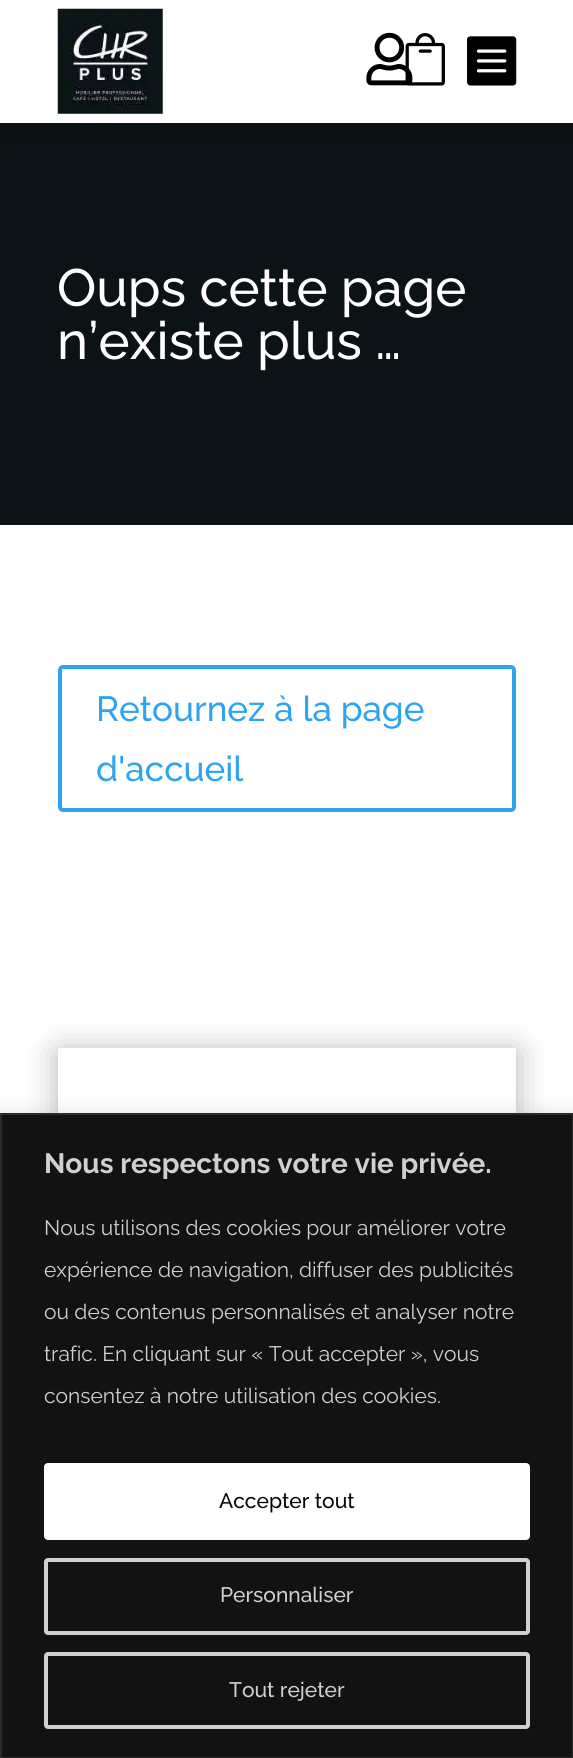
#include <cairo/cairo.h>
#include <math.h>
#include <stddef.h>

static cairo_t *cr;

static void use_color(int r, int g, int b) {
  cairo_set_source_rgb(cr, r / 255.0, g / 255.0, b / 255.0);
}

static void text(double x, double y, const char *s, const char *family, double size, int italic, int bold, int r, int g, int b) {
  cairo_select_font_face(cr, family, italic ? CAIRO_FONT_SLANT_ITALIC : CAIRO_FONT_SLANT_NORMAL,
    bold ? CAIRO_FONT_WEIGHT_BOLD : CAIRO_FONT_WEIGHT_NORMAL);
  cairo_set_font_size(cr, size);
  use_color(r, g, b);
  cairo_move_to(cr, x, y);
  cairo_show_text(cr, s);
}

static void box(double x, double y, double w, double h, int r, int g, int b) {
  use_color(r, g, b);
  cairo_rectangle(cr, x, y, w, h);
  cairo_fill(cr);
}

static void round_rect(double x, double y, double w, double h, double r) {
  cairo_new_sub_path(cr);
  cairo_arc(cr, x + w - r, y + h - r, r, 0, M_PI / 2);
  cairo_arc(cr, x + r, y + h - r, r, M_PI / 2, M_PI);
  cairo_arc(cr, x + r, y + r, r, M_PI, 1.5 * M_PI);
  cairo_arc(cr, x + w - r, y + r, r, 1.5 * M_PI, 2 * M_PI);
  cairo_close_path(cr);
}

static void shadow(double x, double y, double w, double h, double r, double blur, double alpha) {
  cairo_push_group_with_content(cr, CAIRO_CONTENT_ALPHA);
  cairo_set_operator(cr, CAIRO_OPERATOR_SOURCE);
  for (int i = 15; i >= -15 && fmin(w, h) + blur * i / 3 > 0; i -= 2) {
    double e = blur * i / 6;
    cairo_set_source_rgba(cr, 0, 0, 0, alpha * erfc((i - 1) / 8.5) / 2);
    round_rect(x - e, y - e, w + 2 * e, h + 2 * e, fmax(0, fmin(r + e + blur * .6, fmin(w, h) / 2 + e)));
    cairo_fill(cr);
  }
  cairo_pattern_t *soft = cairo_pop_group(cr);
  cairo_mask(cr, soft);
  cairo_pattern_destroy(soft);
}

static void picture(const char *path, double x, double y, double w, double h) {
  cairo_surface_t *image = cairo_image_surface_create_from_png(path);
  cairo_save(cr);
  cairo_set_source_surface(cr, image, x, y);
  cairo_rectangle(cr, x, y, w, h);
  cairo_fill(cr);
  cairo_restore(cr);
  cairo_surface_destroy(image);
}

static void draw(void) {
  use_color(255, 255, 255);
  cairo_paint(cr);
  box(0, 123, 573, 402, 12, 19, 22);
  use_color(0, 0, 0);
  shadow(0, 4, 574, 122, 0, 16, 0.3);
  box(0, 0, 573, 123, 255, 255, 255);
  picture("img_01.png", 57, 8, 106, 106);
  picture("img_02.png", 366, 32, 47, 54);
  picture("img_03.png", 405, 33, 40, 53);
  picture("img_04.png", 467, 36, 50, 50);
  round_rect(60, 667, 454, 143, 3);
  use_color(46, 163, 242);
  cairo_set_line_width(cr, 4);
  cairo_stroke(cr);
  use_color(0, 0, 0);
  shadow(58, 1052, 458, 455, 0, 16, 0.3);
  box(58, 1048, 458, 65, 255, 255, 255);
  use_color(172, 171, 171);
  shadow(0, 1111, 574, 646, 0, 9, 0.3);
  use_color(18, 18, 18);
  cairo_rectangle(cr, 1, 1114, 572, 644);
  cairo_fill_preserve(cr);
  use_color(42, 42, 42);
  cairo_set_line_width(cr, 2);
  cairo_stroke(cr);
  use_color(255, 255, 255);
  round_rect(46, 1465, 482, 73, 2);
  cairo_fill_preserve(cr);
  cairo_set_line_width(cr, 4);
  cairo_stroke(cr);
  round_rect(46, 1560, 482, 73, 2);
  use_color(208, 208, 208);
  cairo_stroke(cr);
  round_rect(46, 1654, 482, 73, 2);
  cairo_stroke(cr);
  text(57, 306, "Oups cette page", "Raleway Medium", 52.5, 0, 0, 255, 255, 255);
  text(57, 359, "n’existe plus …", "Raleway Medium", 52.5, 0, 0, 255, 255, 255);
  text(96, 721, "Retournez à la page", "Raleway Medium", 35, 0, 0, 46, 163, 242);
  text(96, 781, "d'accueil", "Raleway Medium", 35, 0, 0, 46, 163, 242);
  text(44, 1173, "Nous respectons votre vie privée.", "Raleway", 28, 0, 1, 208, 208, 208);
  text(44, 1235, "Nous utilisons des cookies pour améliorer votre", "Raleway", 21, 0, 0, 208, 208, 208);
  text(44, 1277, "expérience de navigation, diffuser des publicités", "Raleway", 21, 0, 0, 208, 208, 208);
  text(44, 1319, "ou des contenus personnalisés et analyser notre", "Raleway", 21, 0, 0, 208, 208, 208);
  text(44, 1361, "trafic. En cliquant sur « Tout accepter », vous", "Raleway", 21, 0, 0, 208, 208, 208);
  text(44, 1403, "consentez à notre utilisation des cookies.", "Raleway", 21, 0, 0, 208, 208, 208);
  text(219, 1508, "Accepter tout", "Raleway Medium", 21, 0, 0, 5, 5, 5);
  text(220, 1602, "Personnaliser", "Raleway Medium", 21, 0, 0, 208, 208, 208);
  text(229, 1697, "Tout rejeter", "Raleway Medium", 21, 0, 0, 208, 208, 208);
}

int main(void) {
  cairo_surface_t *surface = cairo_image_surface_create(CAIRO_FORMAT_RGB24, 573, 1758);
  cr = cairo_create(surface);
  cairo_font_options_t *options = cairo_font_options_create();
  cairo_font_options_set_hint_metrics(options, CAIRO_HINT_METRICS_OFF);
  cairo_font_options_set_hint_style(options, CAIRO_HINT_STYLE_NONE);
  cairo_set_font_options(cr, options);
  cairo_set_miter_limit(cr, 4);
  draw();
  cairo_surface_write_to_png(surface, "out.png");
  cairo_font_options_destroy(options);
  cairo_destroy(cr);
  cairo_surface_destroy(surface);
  return 0;
}
